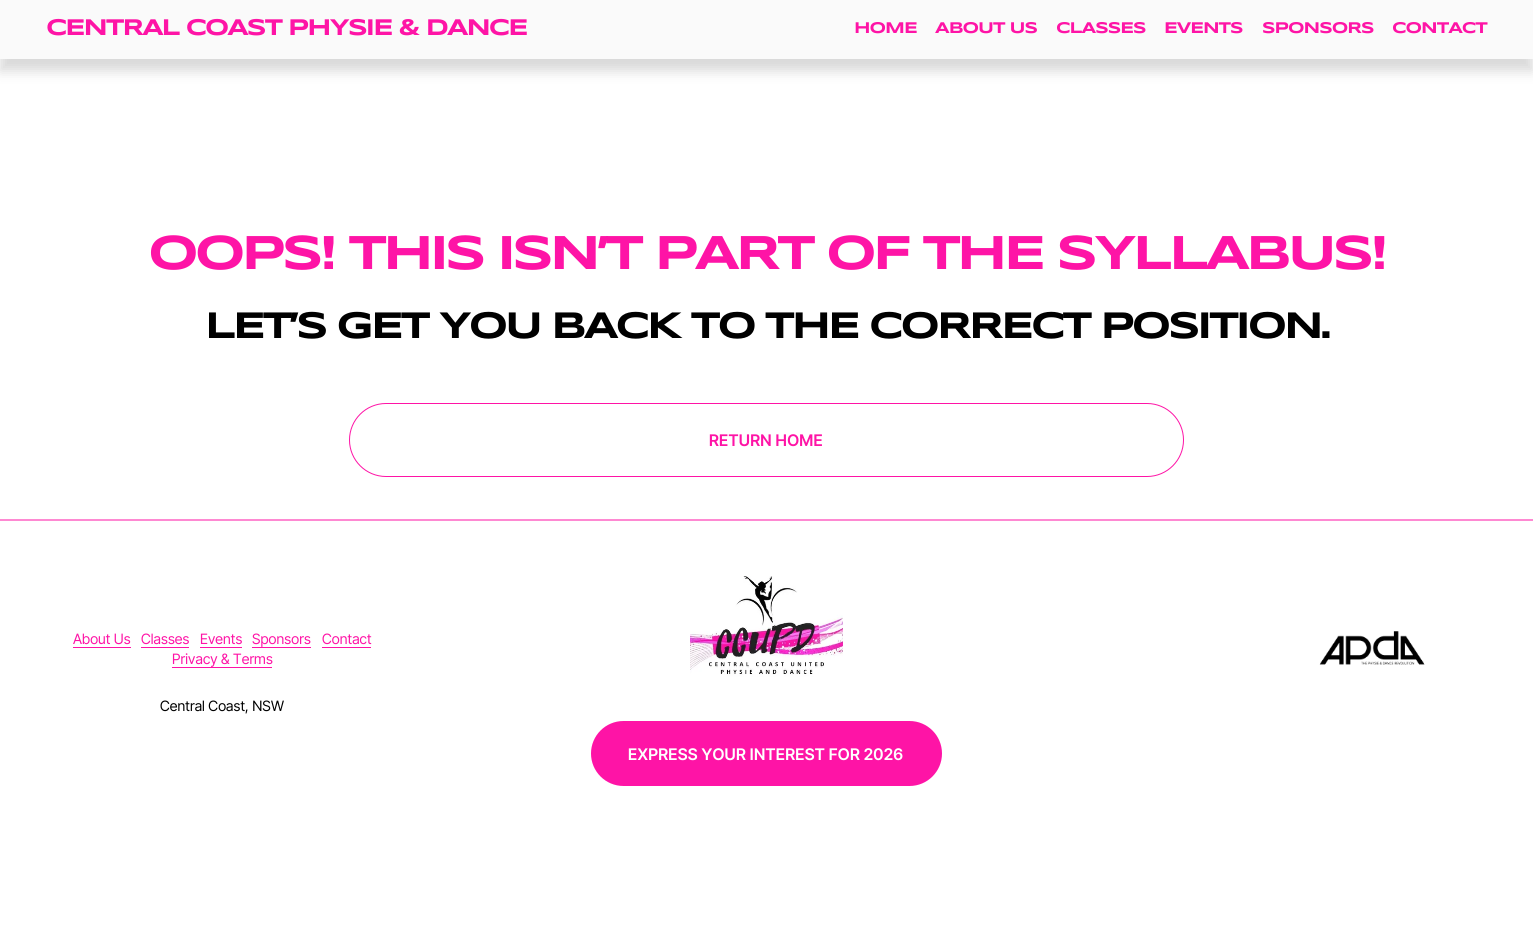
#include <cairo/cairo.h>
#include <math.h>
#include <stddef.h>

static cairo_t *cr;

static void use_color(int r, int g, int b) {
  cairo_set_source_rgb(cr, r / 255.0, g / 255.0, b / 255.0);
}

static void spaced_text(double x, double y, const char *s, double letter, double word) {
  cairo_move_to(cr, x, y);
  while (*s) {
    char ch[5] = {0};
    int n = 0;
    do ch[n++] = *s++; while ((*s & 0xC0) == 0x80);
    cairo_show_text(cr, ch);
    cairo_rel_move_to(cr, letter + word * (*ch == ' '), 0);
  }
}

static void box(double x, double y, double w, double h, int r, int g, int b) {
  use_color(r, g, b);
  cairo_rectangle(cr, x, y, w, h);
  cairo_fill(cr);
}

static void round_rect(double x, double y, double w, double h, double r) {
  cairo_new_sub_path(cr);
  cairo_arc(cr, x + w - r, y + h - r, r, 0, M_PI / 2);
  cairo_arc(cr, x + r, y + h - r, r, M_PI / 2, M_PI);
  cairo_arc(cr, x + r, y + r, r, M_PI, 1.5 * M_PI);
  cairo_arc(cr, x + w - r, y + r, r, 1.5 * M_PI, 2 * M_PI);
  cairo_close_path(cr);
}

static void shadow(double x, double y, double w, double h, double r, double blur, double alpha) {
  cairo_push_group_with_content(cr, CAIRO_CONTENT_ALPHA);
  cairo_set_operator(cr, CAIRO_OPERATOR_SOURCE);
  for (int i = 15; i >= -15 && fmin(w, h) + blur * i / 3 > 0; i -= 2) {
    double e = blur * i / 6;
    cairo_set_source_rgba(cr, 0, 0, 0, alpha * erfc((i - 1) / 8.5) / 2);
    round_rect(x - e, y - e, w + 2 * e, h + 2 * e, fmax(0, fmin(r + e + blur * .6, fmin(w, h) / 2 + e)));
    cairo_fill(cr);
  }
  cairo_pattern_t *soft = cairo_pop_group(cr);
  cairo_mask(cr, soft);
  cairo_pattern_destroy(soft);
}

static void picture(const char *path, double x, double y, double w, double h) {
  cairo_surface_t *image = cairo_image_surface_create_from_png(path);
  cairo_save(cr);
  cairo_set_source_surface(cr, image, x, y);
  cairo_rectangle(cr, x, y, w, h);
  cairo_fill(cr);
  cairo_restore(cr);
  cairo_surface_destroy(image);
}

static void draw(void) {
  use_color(255, 255, 255);
  cairo_paint(cr);
  use_color(217, 217, 217);
  shadow(0, 11, 1533, 60, 0, 6, 1);
  box(0, 0, 1533, 59, 250, 250, 250);
  round_rect(349.5, 403.5, 834, 73, 36.5);
  use_color(254, 20, 166);
  cairo_set_line_width(cr, 1);
  cairo_stroke(cr);
  cairo_new_path(cr);
  cairo_move_to(cr, -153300, 259.5);
  cairo_line_to(cr, -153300, 780);
  cairo_move_to(cr, 0, 520);
  cairo_line_to(cr, 1533, 520);
  cairo_set_line_cap(cr, CAIRO_LINE_CAP_SQUARE);
  cairo_stroke(cr);
  box(73, 647, 58, 1, 254, 20, 166);
  box(141, 647, 48, 1, 254, 20, 166);
  box(200, 647, 42, 1, 254, 20, 166);
  box(252, 647, 59, 1, 254, 20, 166);
  box(322, 647, 49, 1, 254, 20, 166);
  box(172, 667, 100, 1, 254, 20, 166);
  picture("img_01.png", 690, 576, 153, 101);
  picture("img_02.png", 1319, 631, 106, 34);
  round_rect(591, 721, 351, 65, 32.5);
  cairo_fill(cr);
  cairo_select_font_face(cr, "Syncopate", CAIRO_FONT_SLANT_NORMAL, CAIRO_FONT_WEIGHT_BOLD);
  cairo_set_font_size(cr, 23.4);
  spaced_text(46, 35, "CENTRAL COAST PHYSIE & DANCE", -1.9, 0);
  cairo_set_font_size(cr, 16);
  spaced_text(854, 33, "HOME", -1, 0);
  spaced_text(935, 33, "ABOUT US", -1, 0);
  spaced_text(1056, 33, "CLASSES", -1, 0);
  spaced_text(1164, 33, "EVENTS", -1, 0);
  spaced_text(1262, 33, "SPONSORS", -1, 0);
  spaced_text(1392, 33, "CONTACT", -1, 0);
  cairo_set_font_size(cr, 49.1);
  spaced_text(148, 269, "OOPS! THIS ISN’T PART OF THE SYLLABUS!", -3.95, 0);
  cairo_set_font_size(cr, 38.1);
  use_color(0, 0, 0);
  spaced_text(205, 338, "LET’S GET YOU BACK TO THE CORRECT POSITION.", -3.05, 0);
  cairo_select_font_face(cr, "Inter Tight SemiBold", CAIRO_FONT_SLANT_NORMAL, CAIRO_FONT_WEIGHT_NORMAL);
  cairo_set_font_size(cr, 16);
  use_color(254, 20, 166);
  spaced_text(709, 446, "RETURN HOME", 0.3, 0);
  cairo_select_font_face(cr, "Inter Tight", CAIRO_FONT_SLANT_NORMAL, CAIRO_FONT_WEIGHT_NORMAL);
  cairo_set_font_size(cr, 14.25);
  spaced_text(73, 644, "About Us", 0.1, 0);
  spaced_text(141, 644, "Classes", 0.1, 0);
  spaced_text(200, 644, "Events", 0.1, 0);
  spaced_text(252, 644, "Sponsors", 0.1, 0);
  spaced_text(322, 644, "Contact", 0.1, 0);
  spaced_text(172, 664, "Privacy & Terms", 0.1, 0);
  use_color(0, 0, 0);
  spaced_text(160, 711, "Central Coast, NSW", 0.1, 0);
  cairo_select_font_face(cr, "Inter Tight SemiBold", CAIRO_FONT_SLANT_NORMAL, CAIRO_FONT_WEIGHT_NORMAL);
  cairo_set_font_size(cr, 16);
  use_color(255, 255, 255);
  spaced_text(628, 760, "EXPRESS YOUR INTEREST FOR 2026", 0.3, 0);
}

int main(void) {
  cairo_surface_t *surface = cairo_image_surface_create(CAIRO_FORMAT_RGB24, 1533, 944);
  cr = cairo_create(surface);
  cairo_font_options_t *options = cairo_font_options_create();
  cairo_font_options_set_hint_metrics(options, CAIRO_HINT_METRICS_OFF);
  cairo_font_options_set_hint_style(options, CAIRO_HINT_STYLE_NONE);
  cairo_set_font_options(cr, options);
  cairo_set_miter_limit(cr, 4);
  draw();
  cairo_surface_write_to_png(surface, "out.png");
  cairo_font_options_destroy(options);
  cairo_destroy(cr);
  cairo_surface_destroy(surface);
  return 0;
}
